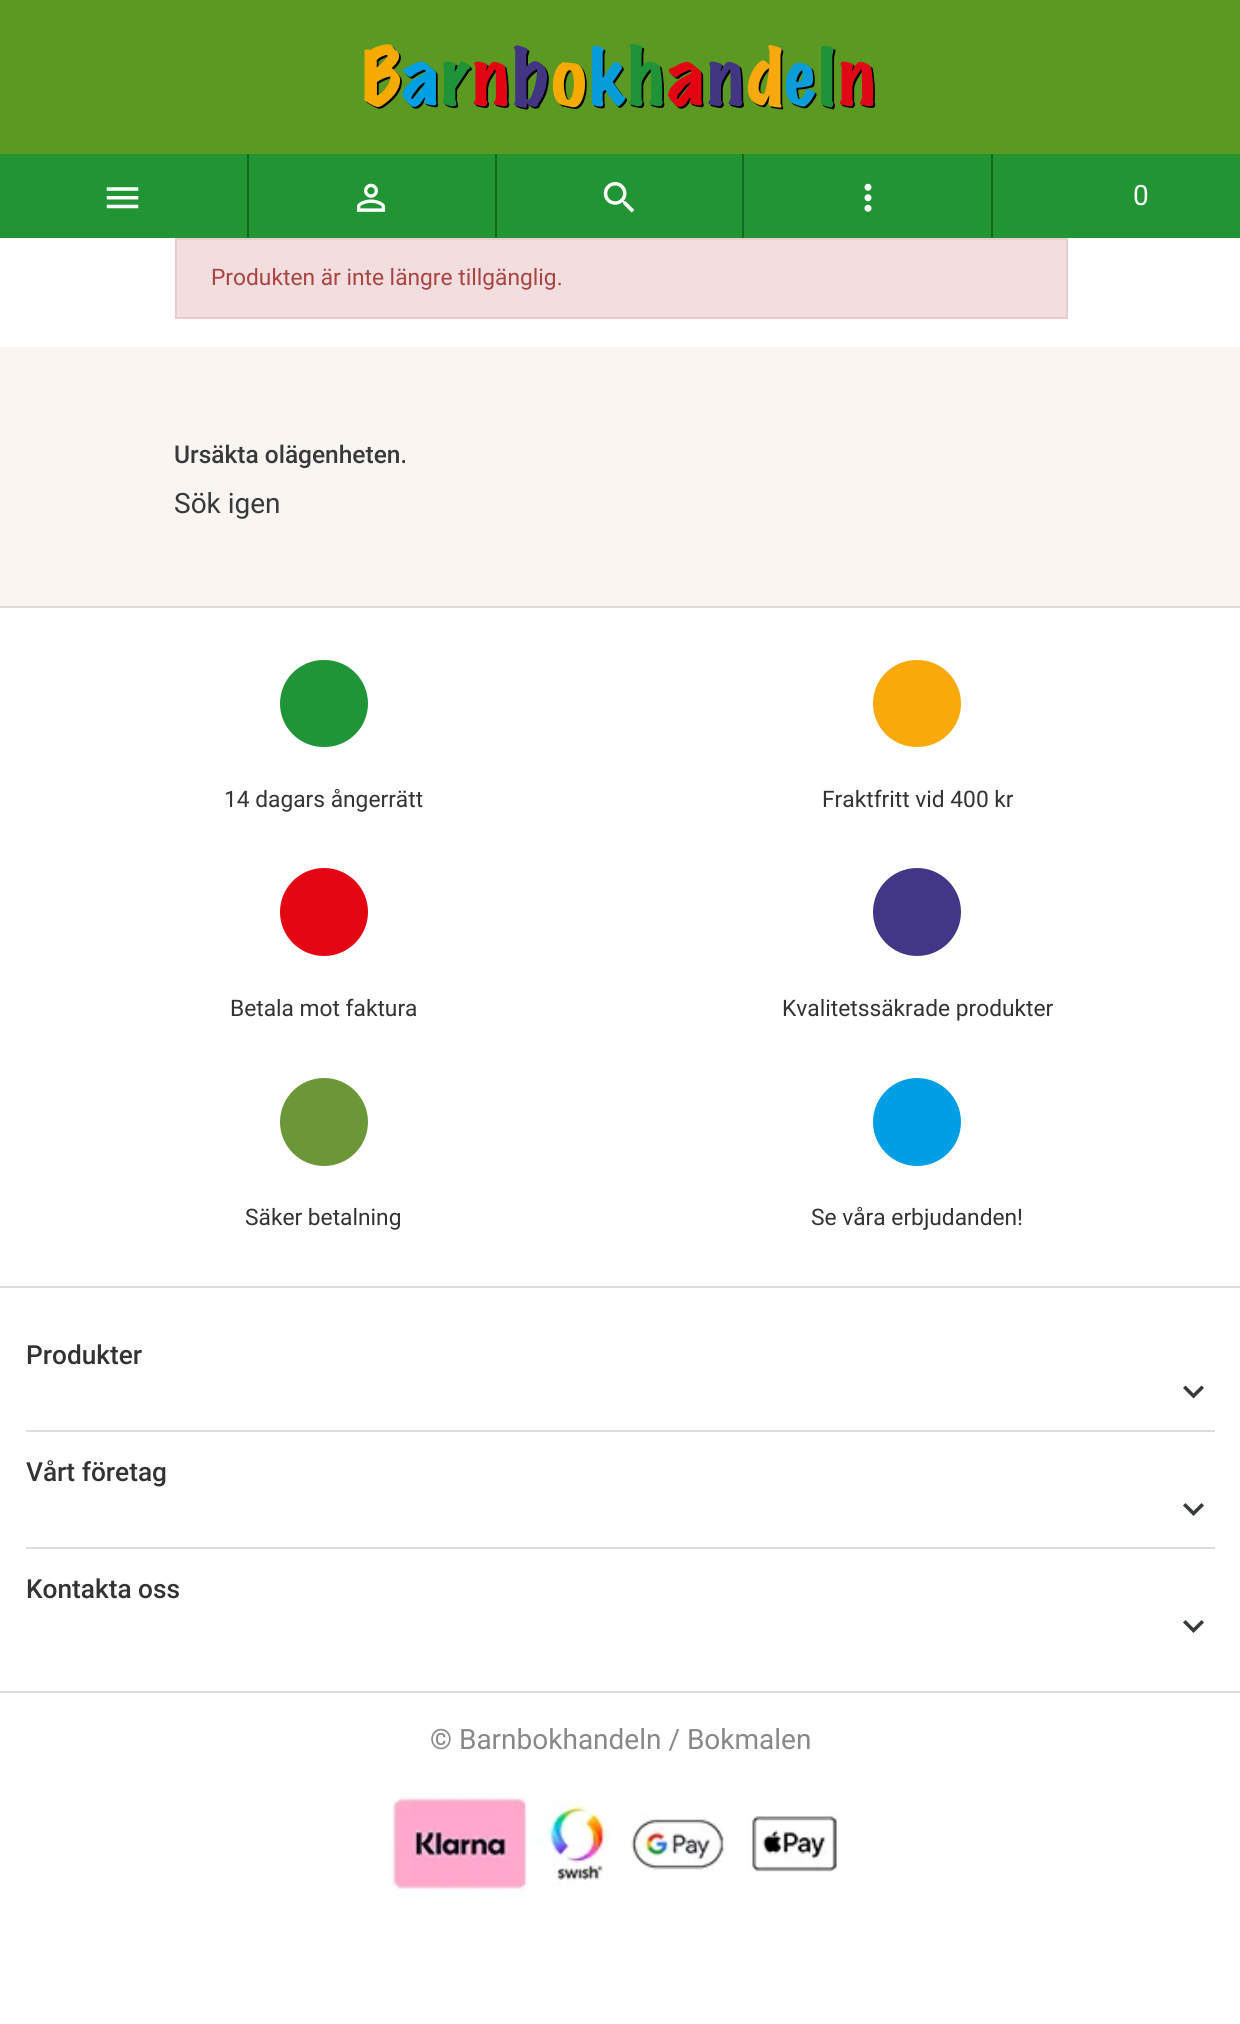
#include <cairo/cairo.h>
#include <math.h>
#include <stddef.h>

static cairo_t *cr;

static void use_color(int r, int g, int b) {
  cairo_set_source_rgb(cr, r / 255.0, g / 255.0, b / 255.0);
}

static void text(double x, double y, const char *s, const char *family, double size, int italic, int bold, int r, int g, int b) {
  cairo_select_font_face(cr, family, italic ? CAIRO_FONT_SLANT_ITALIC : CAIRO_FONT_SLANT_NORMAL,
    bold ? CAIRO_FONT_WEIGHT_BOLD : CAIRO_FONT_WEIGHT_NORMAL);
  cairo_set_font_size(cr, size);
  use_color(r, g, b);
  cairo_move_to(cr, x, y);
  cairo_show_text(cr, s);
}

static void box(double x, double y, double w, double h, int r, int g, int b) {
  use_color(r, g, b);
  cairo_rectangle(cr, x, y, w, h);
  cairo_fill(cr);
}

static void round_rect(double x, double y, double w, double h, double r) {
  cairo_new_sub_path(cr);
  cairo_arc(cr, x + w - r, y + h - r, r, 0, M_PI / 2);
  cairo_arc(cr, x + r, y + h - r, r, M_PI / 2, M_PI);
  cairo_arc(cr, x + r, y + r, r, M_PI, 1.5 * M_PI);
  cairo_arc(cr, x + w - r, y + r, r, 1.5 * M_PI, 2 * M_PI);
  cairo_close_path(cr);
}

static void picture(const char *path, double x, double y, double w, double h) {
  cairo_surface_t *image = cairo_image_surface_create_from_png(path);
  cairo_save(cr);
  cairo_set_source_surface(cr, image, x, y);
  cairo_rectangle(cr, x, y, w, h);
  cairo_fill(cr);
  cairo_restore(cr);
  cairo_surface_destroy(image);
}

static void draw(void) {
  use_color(255, 255, 255);
  cairo_paint(cr);
  box(0, 0, 1240, 154, 92, 153, 34);
  picture("img_01.png", 364, 44, 512, 66);
  box(0, 154, 1240, 84, 33, 149, 51);
  box(247, 154, 2, 84, 23, 104, 36);
  picture("img_02.png", 106, 187, 33, 22);
  box(495, 154, 2, 84, 23, 104, 36);
  picture("img_03.png", 356, 183, 30, 29);
  box(742, 154, 2, 84, 23, 104, 36);
  picture("img_04.png", 603, 182, 32, 31);
  box(991, 154, 2, 84, 23, 104, 36);
  picture("img_05.png", 864, 183, 8, 29);
  use_color(242, 222, 222);
  cairo_rectangle(cr, 176, 239, 891, 79);
  cairo_fill_preserve(cr);
  use_color(235, 204, 204);
  cairo_stroke(cr);
  box(0, 347, 1240, 259, 250, 245, 240);
  box(0, 606, 1240, 2, 221, 221, 221);
  box(0, 1286, 1240, 2, 221, 221, 221);
  use_color(31, 149, 56);
  round_rect(280, 660, 88, 87, 43.5);
  cairo_fill(cr);
  use_color(248, 170, 11);
  round_rect(873, 660, 88, 87, 43.5);
  cairo_fill(cr);
  use_color(227, 6, 19);
  cairo_arc(cr, 324, 912, 44, 0, 2 * M_PI);
  cairo_fill(cr);
  use_color(66, 55, 132);
  cairo_arc(cr, 917, 912, 44, 0, 2 * M_PI);
  cairo_fill(cr);
  use_color(108, 151, 56);
  cairo_arc(cr, 324, 1122, 44, 0, 2 * M_PI);
  cairo_fill(cr);
  use_color(0, 159, 227);
  cairo_arc(cr, 917, 1122, 44, 0, 2 * M_PI);
  cairo_fill(cr);
  box(0, 1691, 1240, 2, 221, 221, 221);
  use_color(55, 58, 60);
  cairo_new_path(cr);
  cairo_move_to(cr, 1185.5, 1385.5);
  cairo_line_to(cr, 1193.5, 1393.5);
  cairo_line_to(cr, 1201.5, 1385.5);
  cairo_line_to(cr, 1204, 1388);
  cairo_line_to(cr, 1193.5, 1398.5);
  cairo_line_to(cr, 1183, 1388);
  cairo_close_path(cr);
  cairo_fill(cr);
  box(26, 1430, 1189, 2, 221, 221, 221);
  use_color(55, 58, 60);
  cairo_new_path(cr);
  cairo_move_to(cr, 1185.5, 1503);
  cairo_line_to(cr, 1193.5, 1511);
  cairo_line_to(cr, 1201.5, 1503);
  cairo_line_to(cr, 1204, 1505.5);
  cairo_line_to(cr, 1193.5, 1516);
  cairo_line_to(cr, 1183, 1505.5);
  cairo_close_path(cr);
  cairo_fill(cr);
  box(26, 1547, 1189, 2, 221, 221, 221);
  use_color(55, 58, 60);
  cairo_new_path(cr);
  cairo_move_to(cr, 1185.5, 1620);
  cairo_line_to(cr, 1193.5, 1628);
  cairo_line_to(cr, 1201.5, 1620);
  cairo_line_to(cr, 1204, 1622.5);
  cairo_line_to(cr, 1193.5, 1633);
  cairo_line_to(cr, 1183, 1622.5);
  cairo_close_path(cr);
  cairo_fill(cr);
  picture("img_06.png", 391, 1794, 447, 101);
  text(1133, 205, "0", "Roboto", 28, 0, 0, 255, 255, 255);
  text(211, 285, "Produkten är inte längre tillgänglig.", "Roboto", 22.75, 0, 0, 169, 68, 66);
  text(174, 463, "Ursäkta olägenheten.", "Roboto Medium", 24.5, 0, 0, 55, 58, 60);
  text(174, 513, "Sök igen", "Roboto", 28, 0, 0, 55, 58, 60);
  text(224, 807, "14 dagars ångerrätt", "Roboto", 22.75, 0, 0, 51, 51, 51);
  text(822, 807, "Fraktfritt vid 400 kr", "Roboto", 22.75, 0, 0, 51, 51, 51);
  text(230, 1016, "Betala mot faktura", "Roboto", 22.75, 0, 0, 51, 51, 51);
  text(782, 1016, "Kvalitetssäkrade produkter", "Roboto", 22.75, 0, 0, 51, 51, 51);
  text(245, 1225, "Säker betalning", "Roboto", 22.75, 0, 0, 51, 51, 51);
  text(811, 1225, "Se våra erbjudanden!", "Roboto", 22.75, 0, 0, 51, 51, 51);
  text(26, 1364, "Produkter", "Roboto Medium", 26.25, 0, 0, 51, 51, 51);
  text(26, 1481, "Vårt företag", "Roboto Medium", 26.25, 0, 0, 51, 51, 51);
  text(26, 1598, "Kontakta oss", "Roboto Medium", 26.25, 0, 0, 51, 51, 51);
  text(430, 1749, "© Barnbokhandeln / Bokmalen", "Roboto", 28, 0, 0, 136, 136, 136);
}

int main(void) {
  cairo_surface_t *surface = cairo_image_surface_create(CAIRO_FORMAT_RGB24, 1240, 2024);
  cr = cairo_create(surface);
  cairo_font_options_t *options = cairo_font_options_create();
  cairo_font_options_set_hint_metrics(options, CAIRO_HINT_METRICS_OFF);
  cairo_font_options_set_hint_style(options, CAIRO_HINT_STYLE_NONE);
  cairo_set_font_options(cr, options);
  cairo_set_miter_limit(cr, 4);
  draw();
  cairo_surface_write_to_png(surface, "out.png");
  cairo_font_options_destroy(options);
  cairo_destroy(cr);
  cairo_surface_destroy(surface);
  return 0;
}
